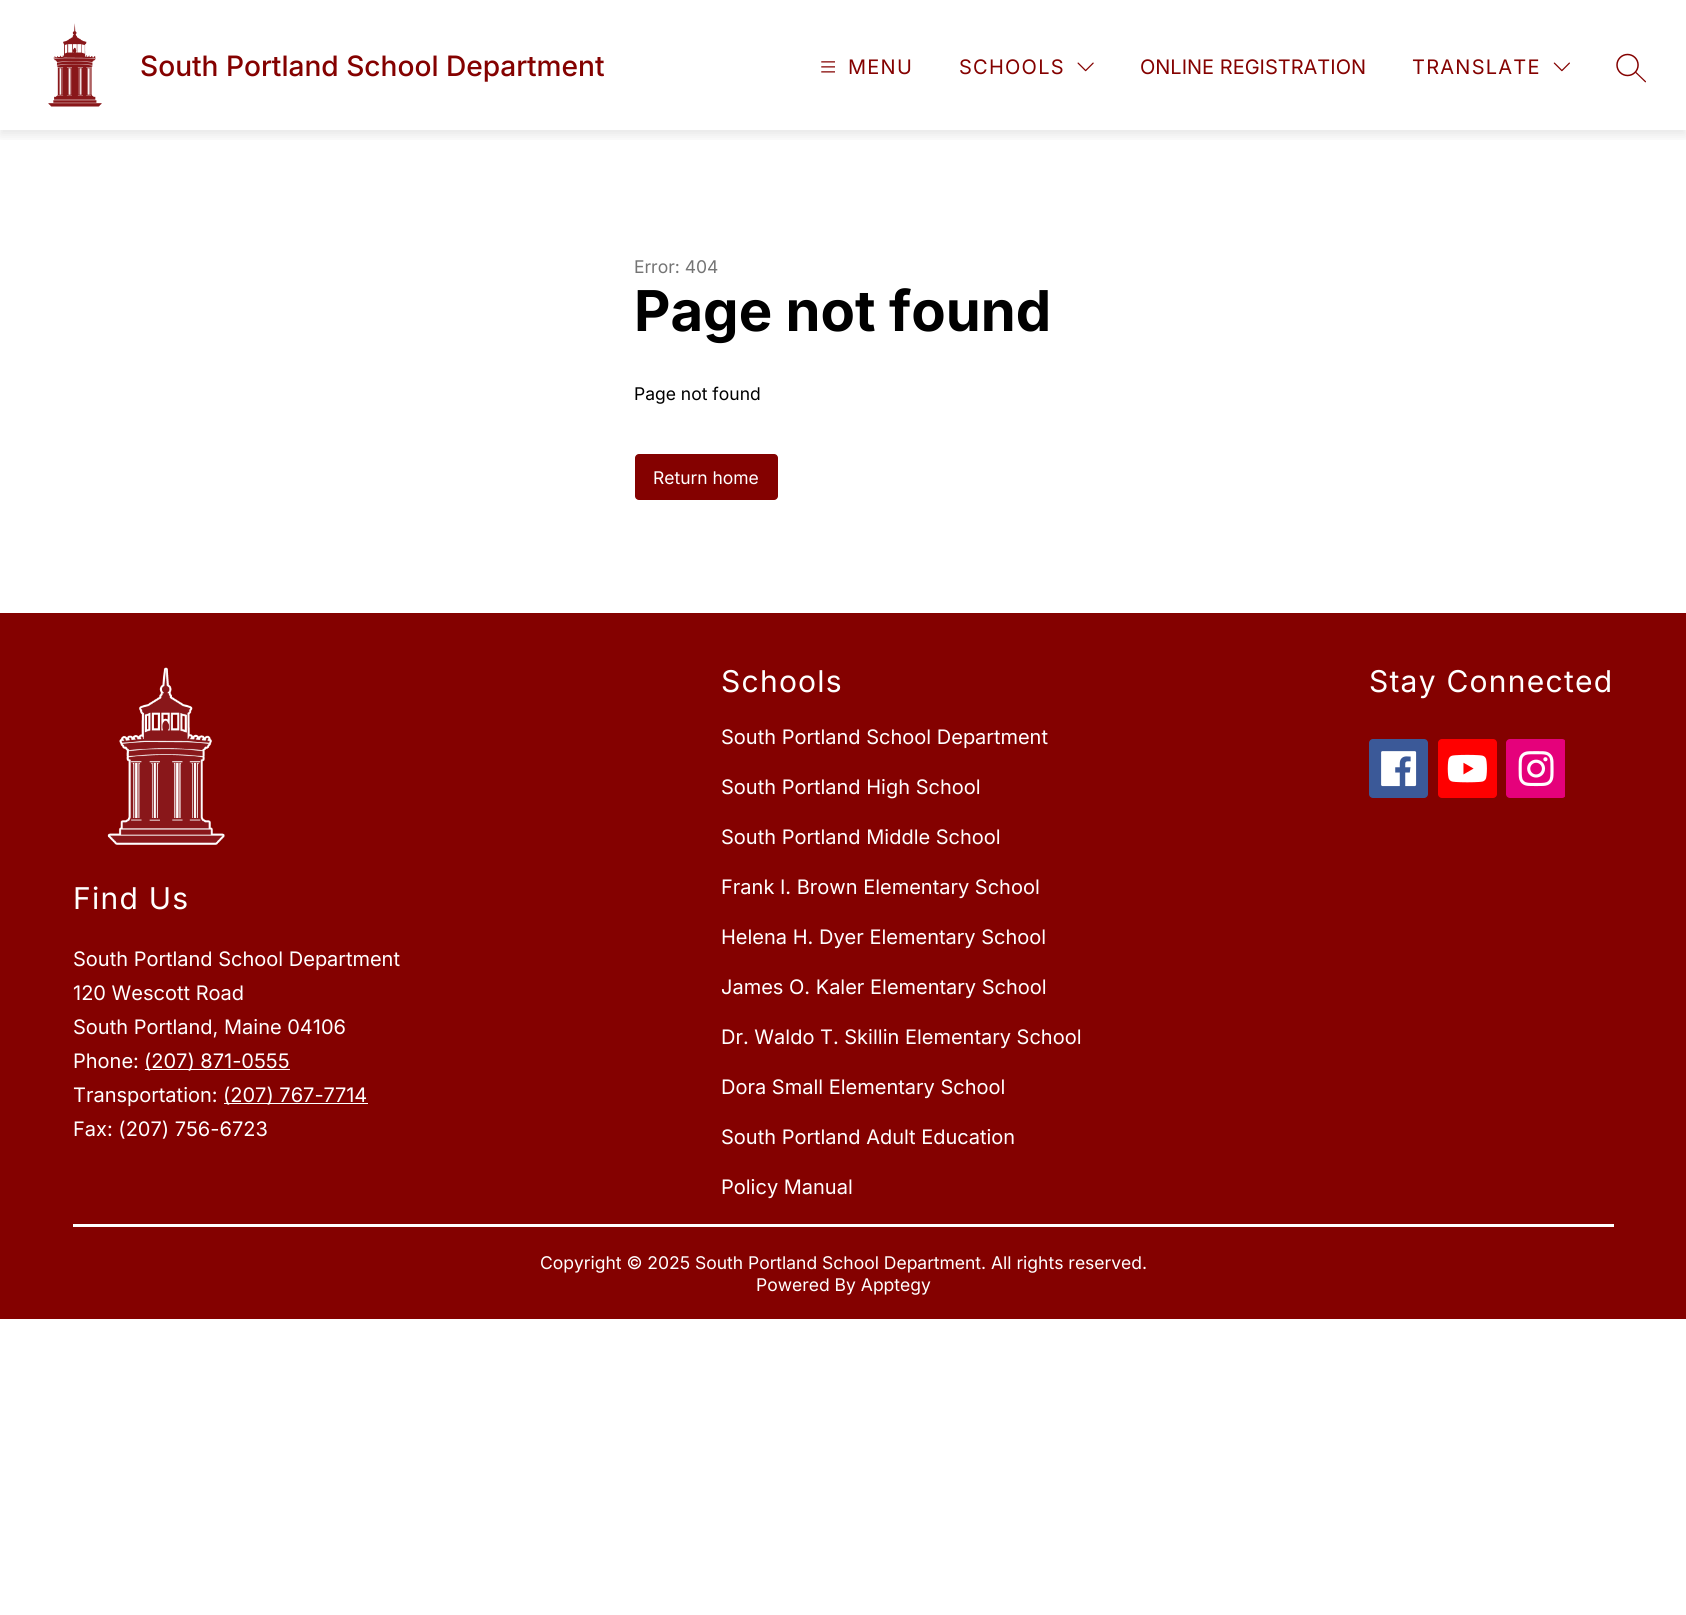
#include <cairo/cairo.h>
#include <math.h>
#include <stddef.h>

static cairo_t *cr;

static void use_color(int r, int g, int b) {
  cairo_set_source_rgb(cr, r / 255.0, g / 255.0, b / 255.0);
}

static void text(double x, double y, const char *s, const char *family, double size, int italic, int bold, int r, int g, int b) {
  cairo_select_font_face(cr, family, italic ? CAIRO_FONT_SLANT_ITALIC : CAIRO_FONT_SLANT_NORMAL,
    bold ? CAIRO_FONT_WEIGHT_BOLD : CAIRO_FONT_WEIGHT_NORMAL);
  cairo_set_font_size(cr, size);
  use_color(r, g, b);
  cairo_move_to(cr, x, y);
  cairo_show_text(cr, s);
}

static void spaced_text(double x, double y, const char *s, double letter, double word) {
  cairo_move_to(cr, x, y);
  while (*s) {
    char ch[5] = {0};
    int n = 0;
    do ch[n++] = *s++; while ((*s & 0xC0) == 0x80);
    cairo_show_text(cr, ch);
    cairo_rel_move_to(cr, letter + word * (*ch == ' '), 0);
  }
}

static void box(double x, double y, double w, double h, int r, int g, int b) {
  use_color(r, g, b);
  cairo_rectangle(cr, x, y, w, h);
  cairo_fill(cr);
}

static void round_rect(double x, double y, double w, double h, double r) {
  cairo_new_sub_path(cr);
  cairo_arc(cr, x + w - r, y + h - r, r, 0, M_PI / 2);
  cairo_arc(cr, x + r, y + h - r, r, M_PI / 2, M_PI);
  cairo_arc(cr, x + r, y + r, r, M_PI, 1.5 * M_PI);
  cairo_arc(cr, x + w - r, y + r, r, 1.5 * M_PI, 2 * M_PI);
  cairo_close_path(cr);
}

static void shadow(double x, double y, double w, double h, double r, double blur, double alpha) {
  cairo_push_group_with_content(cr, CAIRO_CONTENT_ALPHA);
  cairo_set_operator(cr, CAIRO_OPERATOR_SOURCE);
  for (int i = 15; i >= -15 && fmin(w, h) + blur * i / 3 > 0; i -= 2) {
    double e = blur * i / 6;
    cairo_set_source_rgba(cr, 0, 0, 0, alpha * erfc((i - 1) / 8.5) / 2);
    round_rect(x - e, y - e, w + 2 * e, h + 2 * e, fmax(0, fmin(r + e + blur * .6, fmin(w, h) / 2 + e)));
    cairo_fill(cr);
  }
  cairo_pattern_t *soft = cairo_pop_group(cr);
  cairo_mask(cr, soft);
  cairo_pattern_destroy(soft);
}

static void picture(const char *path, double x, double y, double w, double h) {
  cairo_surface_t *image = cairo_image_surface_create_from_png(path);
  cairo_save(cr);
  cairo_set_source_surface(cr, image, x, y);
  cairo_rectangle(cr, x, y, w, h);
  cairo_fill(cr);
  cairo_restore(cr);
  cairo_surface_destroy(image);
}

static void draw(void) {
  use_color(255, 255, 255);
  cairo_paint(cr);
  cairo_save(cr);
  cairo_rectangle(cr, 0, 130, 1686, 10);
  cairo_clip(cr);
  use_color(0, 0, 0);
  shadow(0, 5, 1686, 130, 0, 6, 0.1);
  cairo_restore(cr);
  picture("img_01.png", 48, 23, 54, 84);
  picture("img_02.png", 821, 61, 14, 12);
  picture("img_03.png", 1077, 62, 17, 10);
  picture("img_04.png", 1553, 62, 17, 10);
  picture("img_05.png", 1616, 53, 30, 30);
  use_color(132, 1, 0);
  round_rect(635, 454, 143, 46, 4);
  cairo_fill(cr);
  box(0, 613, 1686, 706, 132, 1, 0);
  picture("img_06.png", 1369, 739, 59, 59);
  picture("img_07.png", 1438, 739, 59, 59);
  picture("img_08.png", 1506, 739, 59, 59);
  picture("img_09.png", 107, 667, 118, 178);
  box(145, 1069, 145, 1, 255, 255, 255);
  box(224, 1103, 144, 1, 255, 255, 255);
  box(73, 1224, 1541, 3, 255, 255, 255);
  text(140, 76, "South Portland School Department", "Inter Medium", 28.1, 0, 0, 132, 1, 0);
  cairo_select_font_face(cr, "Inter", CAIRO_FONT_SLANT_NORMAL, CAIRO_FONT_WEIGHT_NORMAL);
  cairo_set_font_size(cr, 20);
  spaced_text(848, 74, "MENU", 1.25, 0);
  spaced_text(959, 74, "SCHOOLS", 1.25, 0);
  text(1140, 74, "ONLINE REGISTRATION", "Inter", 20, 0, 0, 132, 1, 0);
  spaced_text(1412, 74, "TRANSLATE", 1.25, 0);
  text(634, 273, "Error: 404", "Inter", 17.5, 0, 0, 116, 116, 116);
  text(634, 331, "Page not found", "Inter", 56.25, 0, 1, 0, 0, 0);
  text(634, 400, "Page not found", "Inter", 17.5, 0, 0, 0, 0, 0);
  text(653, 484, "Return home", "Inter", 17.5, 0, 0, 255, 255, 255);
  cairo_set_font_size(cr, 30);
  spaced_text(721, 692, "Schools", 1.25, 0);
  text(721, 744, "South Portland School Department", "Inter", 20, 0, 0, 255, 255, 255);
  text(721, 794, "South Portland High School", "Inter", 20, 0, 0, 255, 255, 255);
  text(721, 844, "South Portland Middle School", "Inter", 20, 0, 0, 255, 255, 255);
  text(721, 894, "Frank I. Brown Elementary School", "Inter", 20, 0, 0, 255, 255, 255);
  text(721, 944, "Helena H. Dyer Elementary School", "Inter", 20, 0, 0, 255, 255, 255);
  text(721, 994, "James O. Kaler Elementary School", "Inter", 20, 0, 0, 255, 255, 255);
  text(721, 1044, "Dr. Waldo T. Skillin Elementary School", "Inter", 20, 0, 0, 255, 255, 255);
  text(721, 1094, "Dora Small Elementary School", "Inter", 20, 0, 0, 255, 255, 255);
  text(721, 1144, "South Portland Adult Education", "Inter", 20, 0, 0, 255, 255, 255);
  text(721, 1194, "Policy Manual", "Inter", 20, 0, 0, 255, 255, 255);
  cairo_set_font_size(cr, 30);
  spaced_text(1369, 692, "Stay Connected", 1.25, 0);
  spaced_text(73, 909, "Find Us", 1.25, 0);
  text(73, 966, "South Portland School Department", "Inter", 20, 0, 0, 255, 255, 255);
  text(73, 1000, "120 Wescott Road", "Inter", 20, 0, 0, 255, 255, 255);
  text(73, 1034, "South Portland, Maine 04106", "Inter", 20, 0, 0, 255, 255, 255);
  text(73, 1068, "Phone:", "Inter", 20, 0, 0, 255, 255, 255);
  text(144, 1068, "(207) 871-0555", "Inter", 20, 0, 0, 255, 255, 255);
  text(73, 1102, "Transportation:", "Inter", 20, 0, 0, 255, 255, 255);
  text(223, 1102, "(207) 767-7714", "Inter", 20, 0, 0, 255, 255, 255);
  text(73, 1136, "Fax: (207) 756-6723", "Inter", 20, 0, 0, 255, 255, 255);
  text(540, 1269, "Copyright © 2025 South Portland School Department. All rights reserved.", "Inter", 17.5, 0, 0, 255, 255, 255);
  text(756, 1291, "Powered By Apptegy", "Inter", 17.5, 0, 0, 255, 255, 255);
}

int main(void) {
  cairo_surface_t *surface = cairo_image_surface_create(CAIRO_FORMAT_RGB24, 1686, 1615);
  cr = cairo_create(surface);
  cairo_font_options_t *options = cairo_font_options_create();
  cairo_font_options_set_hint_metrics(options, CAIRO_HINT_METRICS_OFF);
  cairo_font_options_set_hint_style(options, CAIRO_HINT_STYLE_NONE);
  cairo_set_font_options(cr, options);
  cairo_set_miter_limit(cr, 4);
  draw();
  cairo_surface_write_to_png(surface, "out.png");
  cairo_font_options_destroy(options);
  cairo_destroy(cr);
  cairo_surface_destroy(surface);
  return 0;
}
